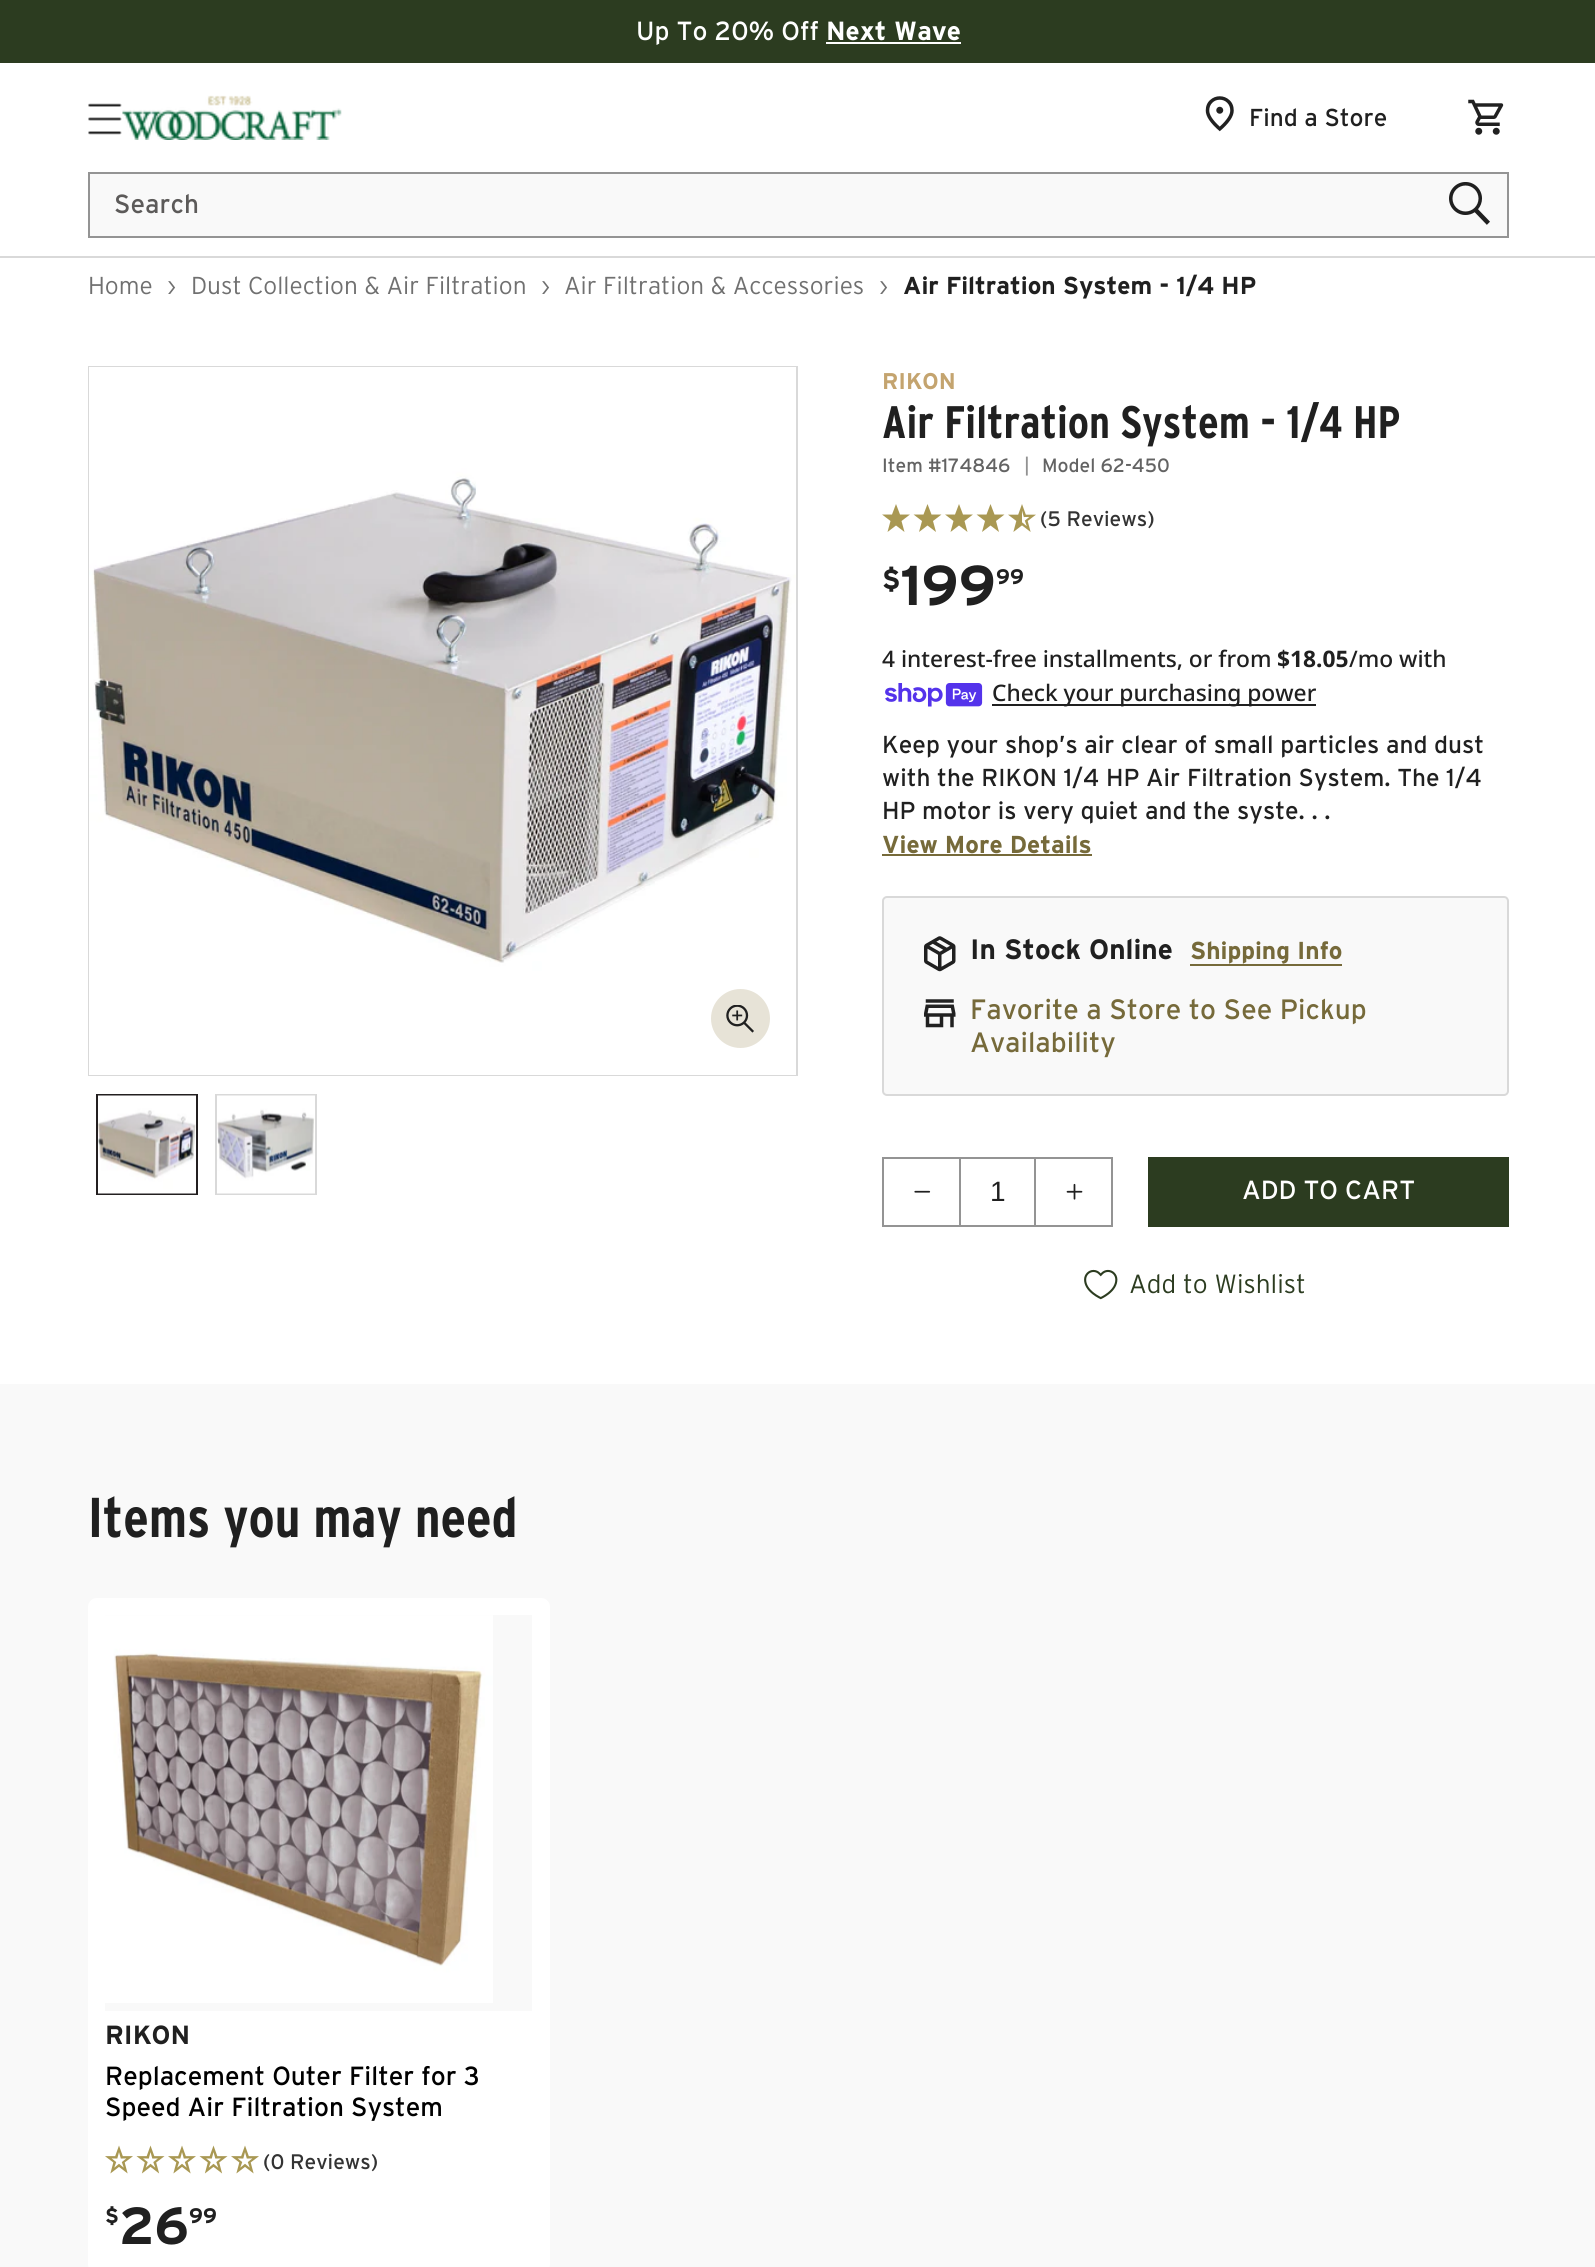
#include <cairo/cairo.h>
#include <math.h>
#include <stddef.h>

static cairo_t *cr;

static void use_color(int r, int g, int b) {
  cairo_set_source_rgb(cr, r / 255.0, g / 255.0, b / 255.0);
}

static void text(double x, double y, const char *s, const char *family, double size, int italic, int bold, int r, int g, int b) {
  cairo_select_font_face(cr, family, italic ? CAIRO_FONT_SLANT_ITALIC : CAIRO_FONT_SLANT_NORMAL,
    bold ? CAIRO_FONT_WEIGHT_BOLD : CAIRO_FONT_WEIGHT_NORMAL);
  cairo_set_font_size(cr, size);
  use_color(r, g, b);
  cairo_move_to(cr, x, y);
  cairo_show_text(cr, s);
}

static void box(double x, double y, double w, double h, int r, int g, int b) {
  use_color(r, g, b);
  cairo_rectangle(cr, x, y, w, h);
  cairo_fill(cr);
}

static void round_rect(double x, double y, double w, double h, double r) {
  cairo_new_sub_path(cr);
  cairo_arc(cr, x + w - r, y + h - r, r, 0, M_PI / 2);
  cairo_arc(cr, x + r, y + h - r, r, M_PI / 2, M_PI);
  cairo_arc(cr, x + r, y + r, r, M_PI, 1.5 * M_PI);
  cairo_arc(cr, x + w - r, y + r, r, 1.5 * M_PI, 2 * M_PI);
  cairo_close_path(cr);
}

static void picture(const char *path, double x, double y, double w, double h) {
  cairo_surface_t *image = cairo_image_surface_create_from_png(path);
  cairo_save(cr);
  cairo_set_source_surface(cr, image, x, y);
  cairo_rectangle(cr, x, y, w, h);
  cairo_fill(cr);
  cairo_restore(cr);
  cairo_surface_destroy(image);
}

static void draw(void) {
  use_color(255, 255, 255);
  cairo_paint(cr);
  box(0, 0, 1595, 63, 44, 60, 32);
  box(826, 42, 135, 2, 255, 255, 255);
  box(0, 256, 1595, 2, 217, 217, 217);
  picture("img_01.png", 88, 103, 34, 32);
  picture("img_02.png", 122, 95, 220, 45);
  picture("img_03.png", 1205, 96, 29, 36);
  picture("img_04.png", 1468, 99, 36, 36);
  use_color(249, 249, 249);
  cairo_rectangle(cr, 89, 173, 1419, 64);
  cairo_fill_preserve(cr);
  use_color(148, 148, 148);
  cairo_stroke(cr);
  picture("img_05.png", 1449, 182, 41, 43);
  cairo_rectangle(cr, 89, 367, 708, 708);
  use_color(217, 217, 217);
  cairo_stroke(cr);
  picture("img_06.png", 89, 367, 707, 708);
  use_color(231, 227, 215);
  cairo_arc(cr, 740.5, 1018.5, 29.5, 0, 2 * M_PI);
  cairo_fill(cr);
  picture("img_07.png", 726, 1005, 28, 28);
  cairo_rectangle(cr, 97, 1095, 100, 99);
  use_color(35, 31, 32);
  cairo_stroke(cr);
  picture("img_08.png", 98, 1095, 98, 99);
  cairo_rectangle(cr, 216, 1095, 100, 99);
  use_color(217, 217, 217);
  cairo_stroke(cr);
  picture("img_09.png", 217, 1095, 98, 99);
  use_color(169, 152, 83);
  cairo_new_path(cr);
  cairo_move_to(cr, 910, 514.5);
  cairo_line_to(cr, 901.5, 521);
  cairo_line_to(cr, 904.5, 532);
  cairo_line_to(cr, 896, 525.5);
  cairo_line_to(cr, 887.5, 532);
  cairo_line_to(cr, 890.5, 521);
  cairo_line_to(cr, 882, 514.5);
  cairo_line_to(cr, 892, 514.5);
  cairo_line_to(cr, 896, 504);
  cairo_line_to(cr, 900, 514.5);
  cairo_close_path(cr);
  cairo_move_to(cr, 941.5, 514.5);
  cairo_line_to(cr, 933, 521);
  cairo_line_to(cr, 936, 532);
  cairo_line_to(cr, 927.5, 525.5);
  cairo_line_to(cr, 919, 532);
  cairo_line_to(cr, 922, 521);
  cairo_line_to(cr, 913.5, 514.5);
  cairo_line_to(cr, 923.5, 514.5);
  cairo_line_to(cr, 927.5, 504);
  cairo_line_to(cr, 931.5, 514.5);
  cairo_close_path(cr);
  cairo_fill(cr);
  cairo_new_path(cr);
  cairo_move_to(cr, 973, 514.5);
  cairo_line_to(cr, 964.5, 521);
  cairo_line_to(cr, 967.5, 532);
  cairo_line_to(cr, 959, 525.5);
  cairo_line_to(cr, 950.5, 532);
  cairo_line_to(cr, 953.5, 521);
  cairo_line_to(cr, 945, 514.5);
  cairo_line_to(cr, 955, 514.5);
  cairo_line_to(cr, 959, 504);
  cairo_line_to(cr, 963, 514.5);
  cairo_close_path(cr);
  cairo_move_to(cr, 1004.5, 514.5);
  cairo_line_to(cr, 996, 521);
  cairo_line_to(cr, 999, 532);
  cairo_line_to(cr, 990.5, 525.5);
  cairo_line_to(cr, 982, 532);
  cairo_line_to(cr, 985, 521);
  cairo_line_to(cr, 976.5, 514.5);
  cairo_line_to(cr, 986.5, 514.5);
  cairo_line_to(cr, 990.5, 504);
  cairo_line_to(cr, 994.5, 514.5);
  cairo_close_path(cr);
  cairo_fill(cr);
  picture("img_10.png", 1008, 504, 28, 28);
  picture("img_11.png", 885, 683, 98, 24);
  box(992, 704, 324, 2, 32, 32, 32);
  box(882, 854, 210, 2, 118, 106, 58);
  use_color(249, 249, 249);
  round_rect(883, 897, 625, 198, 4);
  cairo_fill_preserve(cr);
  use_color(217, 217, 217);
  cairo_stroke(cr);
  picture("img_12.png", 924, 936, 32, 36);
  box(1190, 964, 152, 2, 118, 106, 58);
  picture("img_13.png", 924, 999, 32, 29);
  cairo_rectangle(cr, 883, 1158, 77, 68);
  use_color(148, 148, 148);
  cairo_stroke(cr);
  picture("img_14.png", 914, 1190, 17, 3);
  box(961, 1157, 73, 2, 148, 148, 148);
  box(961, 1225, 73, 2, 148, 148, 148);
  cairo_rectangle(cr, 1035, 1158, 77, 68);
  cairo_stroke(cr);
  picture("img_15.png", 1066, 1183, 17, 17);
  box(1148, 1157, 361, 70, 44, 60, 32);
  picture("img_16.png", 1084, 1269, 34, 31);
  box(0, 1384, 1595, 883, 249, 249, 249);
  use_color(255, 255, 255);
  round_rect(88, 1598, 462, 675, 9);
  cairo_fill(cr);
  box(105, 1615, 427, 396, 249, 249, 249);
  picture("img_17.png", 105, 1615, 388, 388);
  picture("img_18.png", 105, 2145, 28, 29);
  picture("img_19.png", 136, 2145, 29, 29);
  picture("img_18.png", 168, 2145, 28, 29);
  picture("img_19.png", 199, 2145, 29, 29);
  picture("img_18.png", 231, 2145, 28, 29);
  text(636, 40, "Up To 20% Off", "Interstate", 26.25, 0, 0, 255, 255, 255);
  text(826, 40, "Next Wave", "Interstate", 26.25, 0, 1, 255, 255, 255);
  text(1249, 126, "Find a Store", "Interstate", 24.5, 0, 0, 32, 32, 32);
  text(114, 213, "Search", "Interstate", 26.25, 0, 0, 92, 90, 89);
  text(88, 294, "Home", "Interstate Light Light", 24.5, 0, 0, 112, 112, 112);
  text(167, 294, "›", "Interstate Light Light", 24.5, 0, 0, 112, 112, 112);
  text(191, 294, "Dust Collection & Air Filtration", "Interstate Light Light", 24.5, 0, 0, 112, 112, 112);
  text(541, 294, "›", "Interstate Light Light", 24.5, 0, 0, 112, 112, 112);
  text(564, 294, "Air Filtration & Accessories", "Interstate Light Light", 24.5, 0, 0, 112, 112, 112);
  text(879, 294, "›", "Interstate Light Light", 24.5, 0, 0, 112, 112, 112);
  text(903, 294, "Air Filtration System - 1/4 HP", "Interstate", 24.5, 0, 1, 32, 32, 32);
  text(882, 389, "RIKON", "Interstate", 22.75, 0, 1, 196, 164, 111);
  text(882, 438, "Air Filtration System - 1/4 HP", "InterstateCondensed", 45.5, 0, 1, 32, 32, 32);
  text(882, 472, "Item #174846", "Interstate", 19.25, 0, 0, 99, 99, 99);
  text(1024, 472, "|", "Interstate", 19.25, 0, 0, 146, 146, 146);
  text(1042, 472, "Model 62-450", "Interstate", 19.25, 0, 0, 99, 99, 99);
  text(1040, 526, "(5 Reviews)", "Interstate", 21, 0, 0, 51, 51, 51);
  text(882, 589, "$", "Interstate", 28, 0, 1, 32, 32, 32);
  text(900, 605, "199", "Interstate", 56, 0, 1, 32, 32, 32);
  text(996, 584, "99", "Interstate", 21, 0, 1, 32, 32, 32);
  text(882, 667, "4 interest-free installments, or from", "Noto Sans Medium", 22.75, 0, 0, 32, 32, 32);
  text(1277, 667, "$18.05", "Noto Sans", 22.75, 0, 1, 32, 32, 32);
  text(1349, 667, "/mo with", "Noto Sans Medium", 22.75, 0, 0, 32, 32, 32);
  text(992, 701, "Check your purchasing power", "Noto Sans Medium", 22.75, 0, 0, 32, 32, 32);
  text(882, 753, "Keep your shop’s air clear of small particles and dust", "Interstate", 24.5, 0, 0, 32, 32, 32);
  text(882, 786, "with the RIKON 1/4 HP Air Filtration System. The 1/4", "Interstate", 24.5, 0, 0, 32, 32, 32);
  text(882, 819, "HP motor is very quiet and the syste. . .", "Interstate", 24.5, 0, 0, 32, 32, 32);
  text(882, 853, "View More Details", "Interstate", 24.5, 0, 1, 118, 106, 58);
  text(970, 959, "In Stock Online", "Interstate", 28, 0, 1, 32, 32, 32);
  text(1190, 959, "Shipping Info", "Interstate", 24.5, 0, 1, 118, 106, 58);
  text(970, 1019, "Favorite a Store to See Pickup", "Interstate", 28, 0, 0, 118, 106, 58);
  text(970, 1052, "Availability", "Interstate", 28, 0, 0, 118, 106, 58);
  text(990, 1201, "1", "Liberation Sans", 28, 0, 0, 32, 32, 32);
  text(1242, 1199, "ADD TO CART", "Interstate", 26.25, 0, 0, 255, 255, 255);
  text(1129, 1293, "Add to Wishlist", "Interstate Light Light", 26.25, 0, 0, 44, 60, 32);
  text(88, 1537, "Items you may need", "InterstateCondensed", 56, 0, 1, 32, 32, 32);
  text(105, 2044, "RIKON", "Interstate", 26.25, 0, 1, 32, 32, 32);
  text(105, 2085, "Replacement Outer Filter for 3", "Interstate", 26.25, 0, 0, 0, 0, 0);
  text(105, 2116, "Speed Air Filtration System", "Interstate", 26.25, 0, 0, 0, 0, 0);
  text(263, 2169, "(0 Reviews)", "Interstate", 21, 0, 0, 51, 51, 51);
  text(105, 2223, "$", "Interstate", 21, 0, 1, 32, 32, 32);
  text(119, 2244, "26", "Interstate", 52, 0, 1, 32, 32, 32);
  text(189, 2223, "99", "Interstate", 21, 0, 1, 32, 32, 32);
}

int main(void) {
  cairo_surface_t *surface = cairo_image_surface_create(CAIRO_FORMAT_RGB24, 1595, 2267);
  cr = cairo_create(surface);
  cairo_font_options_t *options = cairo_font_options_create();
  cairo_font_options_set_hint_metrics(options, CAIRO_HINT_METRICS_OFF);
  cairo_font_options_set_hint_style(options, CAIRO_HINT_STYLE_NONE);
  cairo_set_font_options(cr, options);
  cairo_set_miter_limit(cr, 4);
  draw();
  cairo_surface_write_to_png(surface, "out.png");
  cairo_font_options_destroy(options);
  cairo_destroy(cr);
  cairo_surface_destroy(surface);
  return 0;
}
